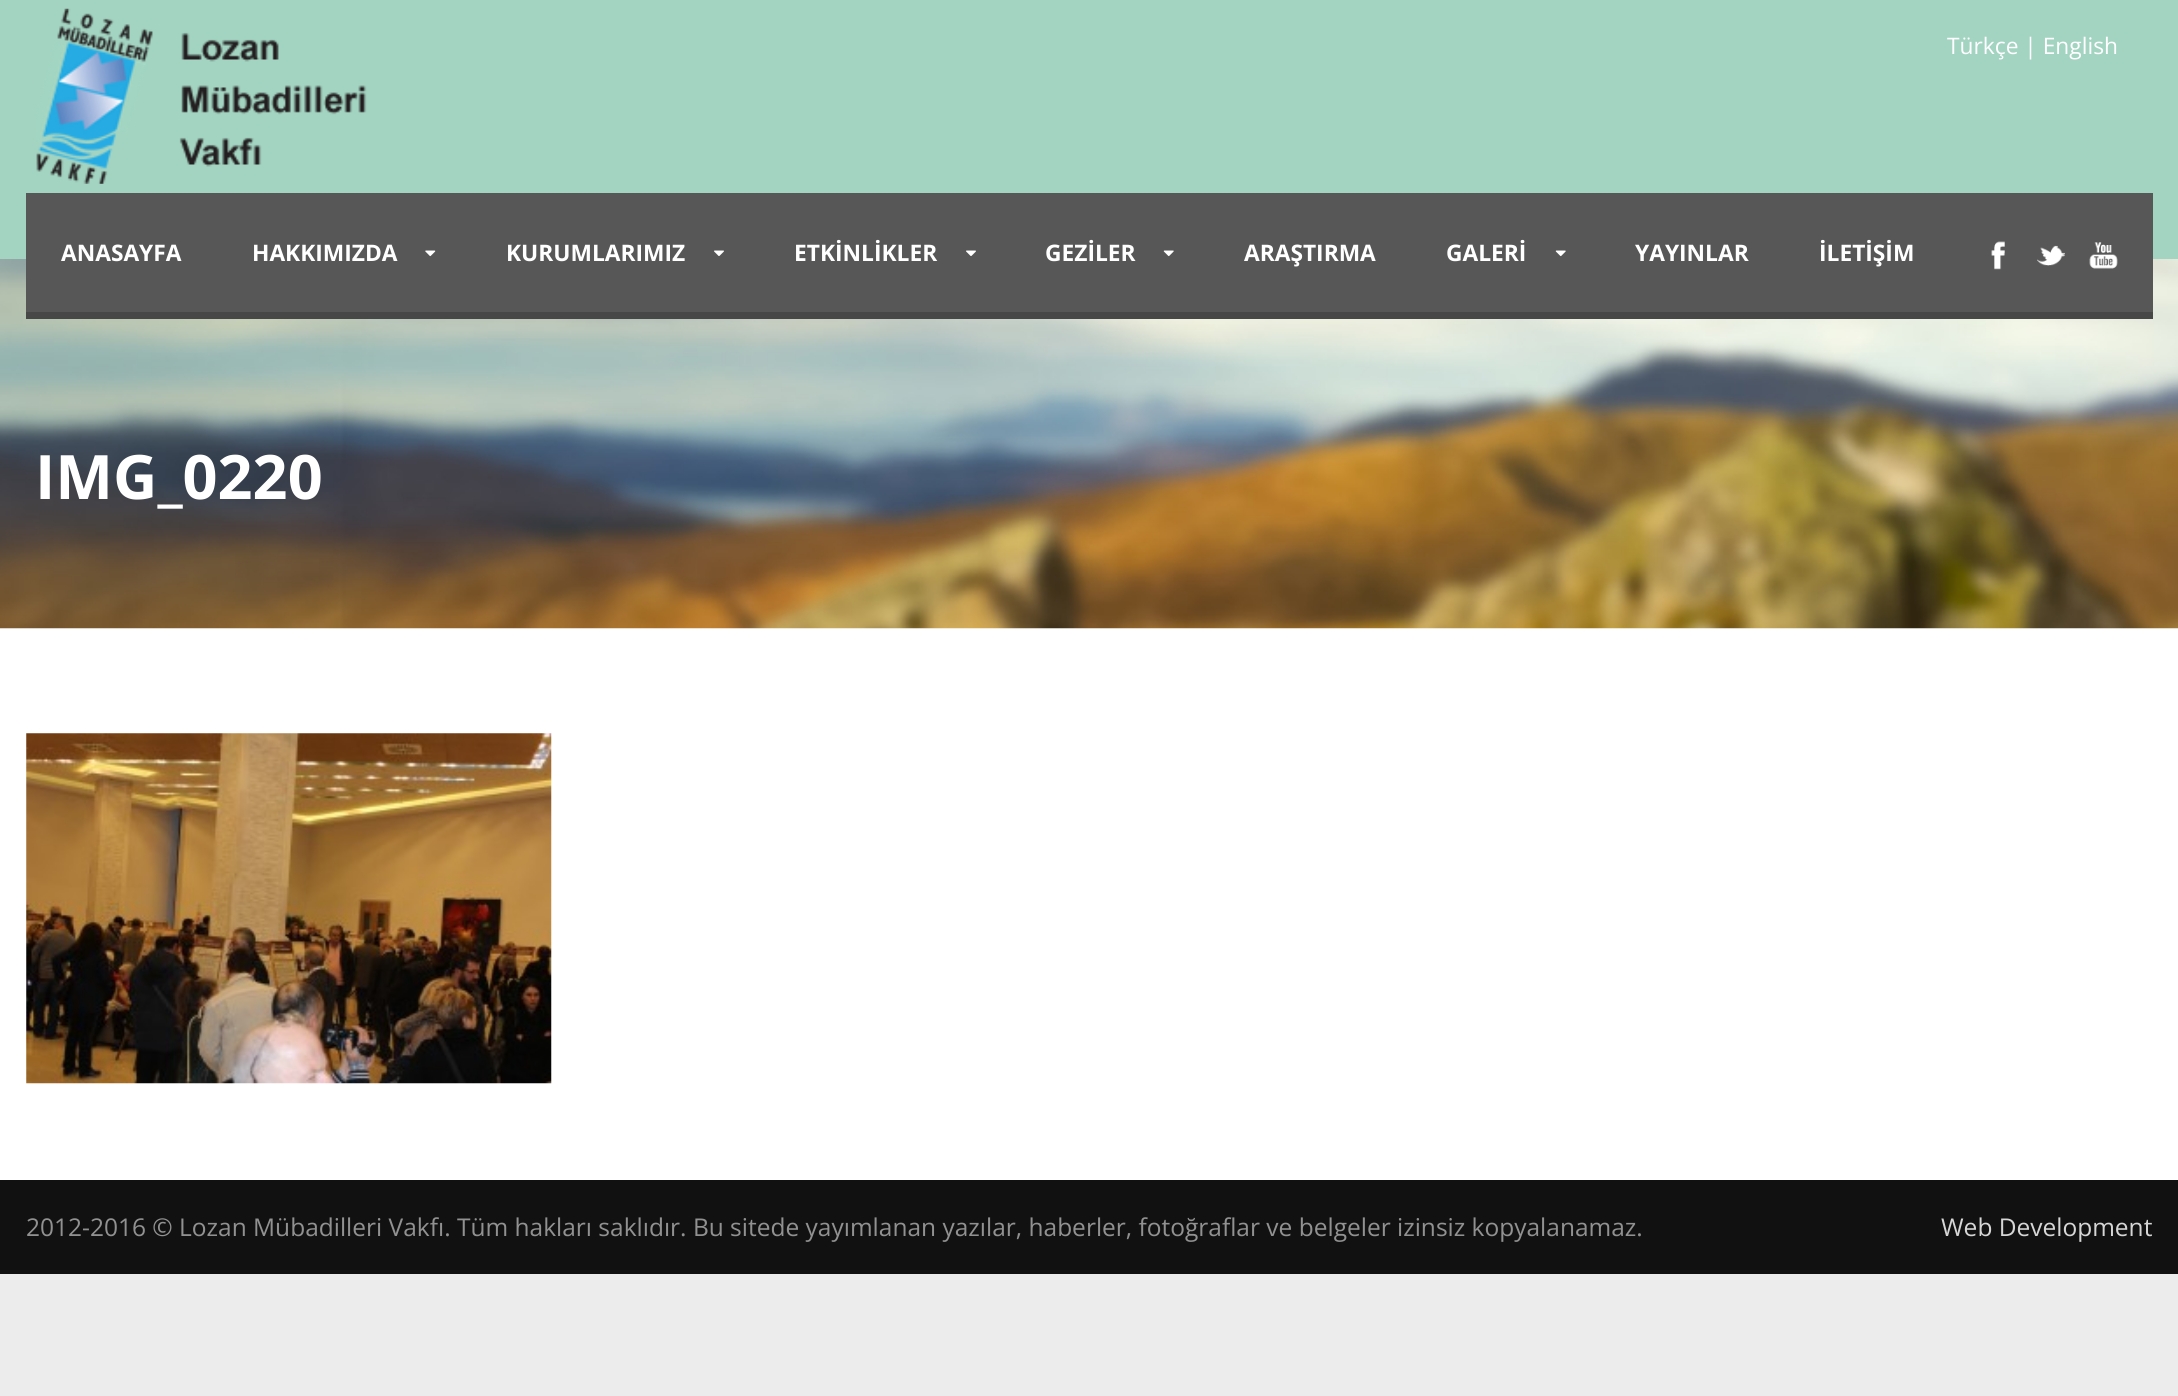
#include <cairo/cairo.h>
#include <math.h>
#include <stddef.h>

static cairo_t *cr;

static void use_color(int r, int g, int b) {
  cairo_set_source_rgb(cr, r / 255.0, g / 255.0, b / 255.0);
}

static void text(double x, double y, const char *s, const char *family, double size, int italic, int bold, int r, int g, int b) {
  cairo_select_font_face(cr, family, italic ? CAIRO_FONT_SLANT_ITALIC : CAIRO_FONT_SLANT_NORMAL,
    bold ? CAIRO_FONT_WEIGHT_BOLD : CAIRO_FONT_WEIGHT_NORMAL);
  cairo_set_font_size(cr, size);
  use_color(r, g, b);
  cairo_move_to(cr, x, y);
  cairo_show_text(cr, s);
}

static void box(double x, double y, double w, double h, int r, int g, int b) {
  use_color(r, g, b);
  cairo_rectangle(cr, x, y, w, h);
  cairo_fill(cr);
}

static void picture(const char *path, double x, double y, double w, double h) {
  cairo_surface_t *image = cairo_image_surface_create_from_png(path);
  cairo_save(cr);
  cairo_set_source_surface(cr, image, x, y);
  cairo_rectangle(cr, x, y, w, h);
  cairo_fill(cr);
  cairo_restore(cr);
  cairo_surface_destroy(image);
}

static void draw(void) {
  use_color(236, 236, 236);
  cairo_paint(cr);
  box(0, 628, 2178, 552, 255, 255, 255);
  box(0, 0, 2178, 259, 163, 212, 194);
  picture("img_01.png", 36, 8, 331, 176);
  picture("img_08.png", 0, 259, 2178, 370);
  box(26, 193, 2127, 119, 87, 87, 87);
  box(26, 312, 2127, 7, 71, 71, 71);
  picture("img_02.png", 425, 250, 11, 7);
  picture("img_03.png", 714, 250, 10, 6);
  picture("img_03.png", 966, 250, 10, 6);
  picture("img_04.png", 1163, 250, 11, 7);
  picture("img_04.png", 1555, 250, 11, 7);
  picture("img_05.png", 1991, 241, 14, 29);
  picture("img_06.png", 2037, 245, 28, 21);
  picture("img_07.png", 2089, 242, 29, 27);
  picture("img_09.png", 26, 733, 526, 351);
  box(0, 1180, 2178, 94, 17, 17, 17);
  text(1947, 54, "Türkçe | English", "Open Sans", 22.75, 0, 0, 255, 255, 255);
  text(61, 261, "ANASAYFA", "Open Sans", 22.75, 0, 1, 255, 255, 255);
  text(252, 261, "HAKKIMIZDA", "Open Sans", 22.75, 0, 1, 255, 255, 255);
  text(506, 261, "KURUMLARIMIZ", "Open Sans", 22.75, 0, 1, 255, 255, 255);
  text(794, 261, "ETKİNLİKLER", "Open Sans", 22.75, 0, 1, 255, 255, 255);
  text(1045, 261, "GEZİLER", "Open Sans", 22.75, 0, 1, 255, 255, 255);
  text(1244, 261, "ARAŞTIRMA", "Open Sans", 22.75, 0, 1, 255, 255, 255);
  text(1446, 261, "GALERİ", "Open Sans", 22.75, 0, 1, 255, 255, 255);
  text(1635, 261, "YAYINLAR", "Open Sans", 22.75, 0, 1, 255, 255, 255);
  text(1819, 261, "İLETİŞİM", "Open Sans", 22.75, 0, 1, 255, 255, 255);
  text(35, 499, "IMG_0220", "Open Sans", 61.25, 0, 1, 255, 255, 255);
  text(26, 1236, "2012-2016 © Lozan Mübadilleri Vakfı. Tüm hakları saklıdır. Bu sitede yayımlanan yazılar, haberler, fotoğraflar ve belgeler izinsiz kopyalanamaz.", "Open Sans", 24.5, 0, 0, 145, 145, 145);
  text(1941, 1236, "Web Development", "Open Sans", 24.5, 0, 0, 214, 214, 214);
}

int main(void) {
  cairo_surface_t *surface = cairo_image_surface_create(CAIRO_FORMAT_RGB24, 2178, 1396);
  cr = cairo_create(surface);
  cairo_font_options_t *options = cairo_font_options_create();
  cairo_font_options_set_hint_metrics(options, CAIRO_HINT_METRICS_OFF);
  cairo_font_options_set_hint_style(options, CAIRO_HINT_STYLE_NONE);
  cairo_set_font_options(cr, options);
  cairo_set_miter_limit(cr, 4);
  draw();
  cairo_surface_write_to_png(surface, "out.png");
  cairo_font_options_destroy(options);
  cairo_destroy(cr);
  cairo_surface_destroy(surface);
  return 0;
}
